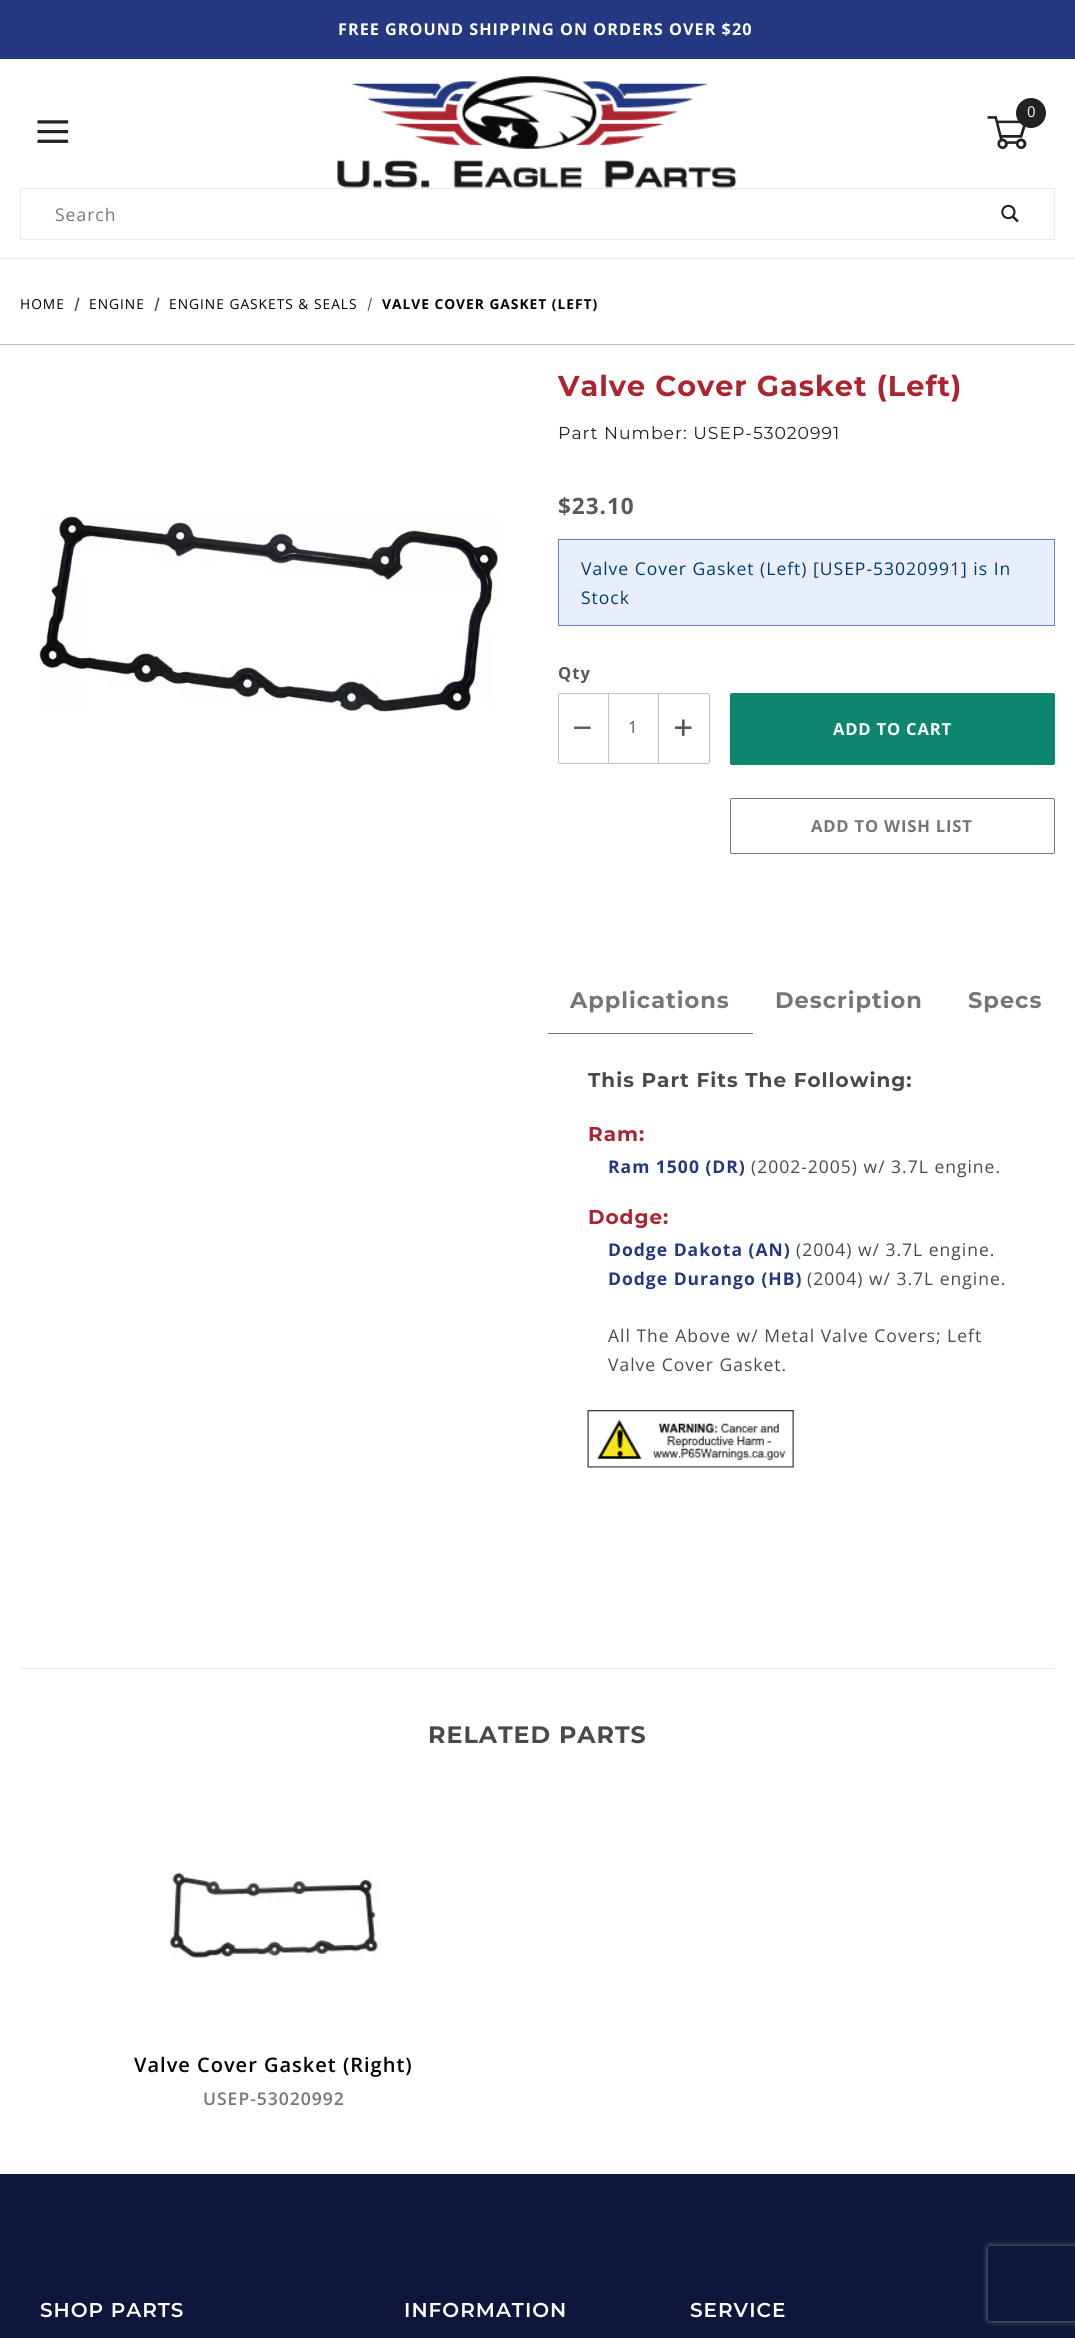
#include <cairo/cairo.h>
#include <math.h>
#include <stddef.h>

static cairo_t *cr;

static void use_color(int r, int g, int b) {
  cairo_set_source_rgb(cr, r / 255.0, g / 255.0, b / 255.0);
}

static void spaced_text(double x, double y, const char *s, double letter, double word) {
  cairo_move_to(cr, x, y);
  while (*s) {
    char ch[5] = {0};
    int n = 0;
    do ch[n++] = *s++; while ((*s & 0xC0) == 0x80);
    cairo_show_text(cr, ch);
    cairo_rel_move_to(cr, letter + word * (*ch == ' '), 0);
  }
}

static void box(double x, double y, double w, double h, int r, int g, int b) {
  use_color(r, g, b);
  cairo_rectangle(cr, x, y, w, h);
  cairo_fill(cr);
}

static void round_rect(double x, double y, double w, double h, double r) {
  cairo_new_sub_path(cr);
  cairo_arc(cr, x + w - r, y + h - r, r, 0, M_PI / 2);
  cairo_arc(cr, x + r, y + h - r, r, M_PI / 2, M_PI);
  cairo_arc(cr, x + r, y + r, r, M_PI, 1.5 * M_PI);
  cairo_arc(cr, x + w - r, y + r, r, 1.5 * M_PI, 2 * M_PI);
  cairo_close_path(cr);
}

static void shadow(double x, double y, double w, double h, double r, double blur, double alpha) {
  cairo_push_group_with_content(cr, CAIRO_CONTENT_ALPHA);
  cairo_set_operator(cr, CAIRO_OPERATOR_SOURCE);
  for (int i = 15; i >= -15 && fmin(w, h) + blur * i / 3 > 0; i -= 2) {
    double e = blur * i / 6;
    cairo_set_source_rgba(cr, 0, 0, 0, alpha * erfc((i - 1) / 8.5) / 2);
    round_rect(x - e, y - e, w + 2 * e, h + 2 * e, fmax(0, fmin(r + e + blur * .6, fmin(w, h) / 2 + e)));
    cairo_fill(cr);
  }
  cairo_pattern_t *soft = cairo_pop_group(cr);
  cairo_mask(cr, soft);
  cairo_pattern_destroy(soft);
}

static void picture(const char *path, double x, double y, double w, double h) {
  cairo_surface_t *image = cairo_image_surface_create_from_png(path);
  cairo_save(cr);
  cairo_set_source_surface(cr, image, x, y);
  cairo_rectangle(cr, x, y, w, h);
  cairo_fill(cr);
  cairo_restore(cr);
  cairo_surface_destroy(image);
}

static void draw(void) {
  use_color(255, 255, 255);
  cairo_paint(cr);
  box(0, 258, 1075, 1, 234, 234, 234);
  box(0, 0, 1075, 59, 35, 56, 129);
  picture("img_01.png", 337, 76, 400, 112);
  use_color(34, 34, 34);
  cairo_arc(cr, 1031, 113, 15, 0, 2 * M_PI);
  cairo_fill(cr);
  picture("img_02.png", 987, 116, 40, 33);
  picture("img_03.png", 37, 120, 32, 23);
  cairo_rectangle(cr, 20.5, 188.5, 1034, 51);
  use_color(234, 234, 234);
  cairo_set_line_width(cr, 1);
  cairo_stroke(cr);
  picture("img_04.png", 1001, 204, 18, 19);
  box(0, 344, 1075, 1, 192, 192, 192);
  use_color(74, 74, 74);
  cairo_new_path(cr);
  cairo_move_to(cr, 78, 297.5);
  cairo_line_to(cr, 79.5, 298);
  cairo_line_to(cr, 76, 311);
  cairo_line_to(cr, 74.5, 311);
  cairo_close_path(cr);
  cairo_fill(cr);
  cairo_new_path(cr);
  cairo_move_to(cr, 158, 297.5);
  cairo_line_to(cr, 159.5, 298);
  cairo_line_to(cr, 156, 311);
  cairo_line_to(cr, 154.5, 311);
  cairo_close_path(cr);
  cairo_fill(cr);
  cairo_new_path(cr);
  cairo_move_to(cr, 371, 297.5);
  cairo_line_to(cr, 372, 298);
  cairo_line_to(cr, 368.5, 311);
  cairo_line_to(cr, 367.5, 311);
  cairo_close_path(cr);
  cairo_fill(cr);
  picture("img_05.png", 39, 514, 460, 199);
  use_color(233, 238, 253);
  cairo_rectangle(cr, 558.5, 539.5, 496, 86);
  cairo_fill_preserve(cr);
  use_color(107, 127, 196);
  cairo_stroke(cr);
  cairo_new_path(cr);
  cairo_move_to(cr, 560, 693.5);
  cairo_line_to(cr, 608.5, 693.5);
  cairo_line_to(cr, 608.5, 763.5);
  cairo_line_to(cr, 560, 763.5);
  cairo_curve_to(cr, 559, 763.5, 558.5, 763, 558.5, 762);
  cairo_line_to(cr, 558.5, 695);
  cairo_curve_to(cr, 558.5, 694, 559, 693.5, 560, 693.5);
  cairo_close_path(cr);
  use_color(192, 192, 192);
  cairo_stroke(cr);
  box(609, 693, 100, 1, 192, 192, 192);
  box(658, 693, 1, 71, 192, 192, 192);
  box(609, 763, 100, 1, 192, 192, 192);
  box(709, 694, 1, 69, 192, 192, 192);
  use_color(13, 134, 112);
  round_rect(730, 693, 325, 72, 2);
  cairo_fill(cr);
  round_rect(730.5, 798.5, 324, 55, 1.5);
  use_color(118, 118, 118);
  cairo_stroke(cr);
  box(548, 1033, 205, 1, 118, 118, 118);
  picture("img_06.png", 587, 1410, 207, 58);
  box(20, 1668, 1035, 1, 234, 234, 234);
  picture("img_07.png", 168, 1872, 213, 86);
  box(0, 2174, 1075, 164, 13, 23, 60);
  cairo_save(cr);
  cairo_set_fill_rule(cr, CAIRO_FILL_RULE_EVEN_ODD);
  cairo_new_path(cr);
  cairo_move_to(cr, 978, 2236);
  cairo_line_to(cr, 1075, 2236);
  cairo_line_to(cr, 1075, 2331);
  cairo_line_to(cr, 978, 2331);
  cairo_close_path(cr);
  cairo_move_to(cr, 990.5, 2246);
  cairo_line_to(cr, 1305.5, 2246);
  cairo_curve_to(cr, 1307, 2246, 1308, 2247, 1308, 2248.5);
  cairo_line_to(cr, 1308, 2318.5);
  cairo_curve_to(cr, 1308, 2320, 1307, 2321, 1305.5, 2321);
  cairo_line_to(cr, 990.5, 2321);
  cairo_curve_to(cr, 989, 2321, 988, 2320, 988, 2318.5);
  cairo_line_to(cr, 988, 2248.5);
  cairo_curve_to(cr, 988, 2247, 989, 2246, 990.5, 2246);
  cairo_close_path(cr);
  cairo_clip(cr);
  use_color(128, 128, 128);
  shadow(988, 2246, 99, 75, 2.5, 3, 1);
  cairo_restore(cr);
  cairo_select_font_face(cr, "Open Sans", CAIRO_FONT_SLANT_NORMAL, CAIRO_FONT_WEIGHT_BOLD);
  cairo_set_font_size(cr, 16.25);
  use_color(255, 255, 255);
  spaced_text(338, 35, "FREE GROUND SHIPPING ON ORDERS OVER $20", 1, 0);
  cairo_select_font_face(cr, "Noto Sans", CAIRO_FONT_SLANT_NORMAL, CAIRO_FONT_WEIGHT_NORMAL);
  cairo_set_font_size(cr, 15);
  use_color(234, 234, 234);
  spaced_text(1027, 117, "0", 1, 0);
  cairo_select_font_face(cr, "Open Sans", CAIRO_FONT_SLANT_NORMAL, CAIRO_FONT_WEIGHT_NORMAL);
  cairo_set_font_size(cr, 17.5);
  use_color(118, 118, 118);
  spaced_text(55, 221, "Search", 1, 0);
  cairo_set_font_size(cr, 13.75);
  use_color(0, 0, 0);
  spaced_text(20, 309, "HOME", 1, 0);
  spaced_text(89, 309, "ENGINE", 1, 0);
  spaced_text(169, 309, "ENGINE GASKETS & SEALS", 1, 0);
  cairo_select_font_face(cr, "Open Sans", CAIRO_FONT_SLANT_NORMAL, CAIRO_FONT_WEIGHT_BOLD);
  spaced_text(382, 309, "VALVE COVER GASKET (LEFT)", 1, 0);
  cairo_select_font_face(cr, "Montserrat", CAIRO_FONT_SLANT_NORMAL, CAIRO_FONT_WEIGHT_BOLD);
  cairo_set_font_size(cr, 28.75);
  use_color(171, 36, 48);
  spaced_text(558, 396, "Valve Cover Gasket (Left)", 1, 0);
  cairo_select_font_face(cr, "Montserrat", CAIRO_FONT_SLANT_NORMAL, CAIRO_FONT_WEIGHT_NORMAL);
  cairo_set_font_size(cr, 17.25);
  use_color(34, 34, 34);
  spaced_text(558, 439, "Part Number: USEP-53020991", 1, 0);
  cairo_select_font_face(cr, "Open Sans", CAIRO_FONT_SLANT_NORMAL, CAIRO_FONT_WEIGHT_BOLD);
  cairo_set_font_size(cr, 22.5);
  use_color(89, 89, 89);
  spaced_text(558, 514, "$23.10", 1, 0);
  cairo_select_font_face(cr, "Open Sans", CAIRO_FONT_SLANT_NORMAL, CAIRO_FONT_WEIGHT_NORMAL);
  cairo_set_font_size(cr, 17.5);
  use_color(0, 59, 111);
  spaced_text(581, 575, "Valve Cover Gasket (Left) [USEP-53020991] is In", 1, 0);
  spaced_text(581, 604, "Stock", 1, 0);
  cairo_select_font_face(cr, "Open Sans", CAIRO_FONT_SLANT_NORMAL, CAIRO_FONT_WEIGHT_BOLD);
  cairo_set_font_size(cr, 16.6);
  use_color(89, 89, 89);
  spaced_text(558, 679, "Qty", 1, 0);
  cairo_select_font_face(cr, "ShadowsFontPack", CAIRO_FONT_SLANT_NORMAL, CAIRO_FONT_WEIGHT_NORMAL);
  spaced_text(574, 735, "<", 0.8, 0);
  cairo_select_font_face(cr, "Open Sans", CAIRO_FONT_SLANT_NORMAL, CAIRO_FONT_WEIGHT_NORMAL);
  spaced_text(628, 733, "1", 0.8, 0);
  cairo_select_font_face(cr, "ShadowsFontPack", CAIRO_FONT_SLANT_NORMAL, CAIRO_FONT_WEIGHT_NORMAL);
  spaced_text(675, 735, "=", 0.8, 0);
  cairo_select_font_face(cr, "Open Sans", CAIRO_FONT_SLANT_NORMAL, CAIRO_FONT_WEIGHT_BOLD);
  use_color(255, 255, 255);
  spaced_text(833, 735, "ADD TO CART", 0.8, 0);
  use_color(118, 118, 118);
  spaced_text(811, 832, "ADD TO WISH LIST", 0.8, 0);
  cairo_select_font_face(cr, "Montserrat", CAIRO_FONT_SLANT_NORMAL, CAIRO_FONT_WEIGHT_BOLD);
  cairo_set_font_size(cr, 22.5);
  spaced_text(570, 1008, "Applications", 1, 0);
  spaced_text(775, 1008, "Description", 1, 0);
  spaced_text(968, 1008, "Specs", 1, 0);
  cairo_set_font_size(cr, 20);
  use_color(74, 74, 74);
  spaced_text(588, 1087, "This Part Fits The Following:", 1, 0);
  use_color(171, 36, 48);
  spaced_text(588, 1141, "Ram:", 1, 0);
  cairo_select_font_face(cr, "Open Sans", CAIRO_FONT_SLANT_NORMAL, CAIRO_FONT_WEIGHT_BOLD);
  cairo_set_font_size(cr, 17.5);
  use_color(35, 56, 129);
  spaced_text(608, 1173, "Ram 1500 (DR)", 1, 0);
  cairo_select_font_face(cr, "Open Sans", CAIRO_FONT_SLANT_NORMAL, CAIRO_FONT_WEIGHT_NORMAL);
  use_color(74, 74, 74);
  spaced_text(751, 1173, "(2002-2005) w/ 3.7L engine.", 1, 0);
  cairo_select_font_face(cr, "Montserrat", CAIRO_FONT_SLANT_NORMAL, CAIRO_FONT_WEIGHT_BOLD);
  cairo_set_font_size(cr, 20);
  use_color(171, 36, 48);
  spaced_text(588, 1224, "Dodge:", 1, 0);
  cairo_select_font_face(cr, "Open Sans", CAIRO_FONT_SLANT_NORMAL, CAIRO_FONT_WEIGHT_BOLD);
  cairo_set_font_size(cr, 17.5);
  use_color(35, 56, 129);
  spaced_text(608, 1256, "Dodge Dakota (AN)", 1, 0);
  cairo_select_font_face(cr, "Open Sans", CAIRO_FONT_SLANT_NORMAL, CAIRO_FONT_WEIGHT_NORMAL);
  use_color(74, 74, 74);
  spaced_text(796, 1256, "(2004) w/ 3.7L engine.", 1, 0);
  cairo_select_font_face(cr, "Open Sans", CAIRO_FONT_SLANT_NORMAL, CAIRO_FONT_WEIGHT_BOLD);
  use_color(35, 56, 129);
  spaced_text(608, 1285, "Dodge Durango (HB)", 1, 0);
  cairo_select_font_face(cr, "Open Sans", CAIRO_FONT_SLANT_NORMAL, CAIRO_FONT_WEIGHT_NORMAL);
  use_color(74, 74, 74);
  spaced_text(807, 1285, "(2004) w/ 3.7L engine.", 1, 0);
  spaced_text(608, 1342, "All The Above w/ Metal Valve Covers; Left", 1, 0);
  spaced_text(608, 1371, "Valve Cover Gasket.", 1, 0);
  cairo_select_font_face(cr, "Montserrat", CAIRO_FONT_SLANT_NORMAL, CAIRO_FONT_WEIGHT_BOLD);
  cairo_set_font_size(cr, 23.75);
  spaced_text(428, 1743, "RELATED PARTS", 1, 0);
  cairo_select_font_face(cr, "Open Sans SemiBold", CAIRO_FONT_SLANT_NORMAL, CAIRO_FONT_WEIGHT_NORMAL);
  cairo_set_font_size(cr, 20);
  use_color(0, 0, 0);
  spaced_text(134, 2072, "Valve Cover Gasket (Right)", 1, 0);
  cairo_set_font_size(cr, 17.5);
  use_color(118, 118, 118);
  spaced_text(203, 2105, "USEP-53020992", 1, 0);
  cairo_select_font_face(cr, "Montserrat SemiBold", CAIRO_FONT_SLANT_NORMAL, CAIRO_FONT_WEIGHT_NORMAL);
  cairo_set_font_size(cr, 20);
  use_color(255, 255, 255);
  spaced_text(40, 2317, "SHOP PARTS", 1, 0);
  spaced_text(404, 2317, "INFORMATION", 1, 0);
  spaced_text(690, 2317, "SERVICE", 1, 0);
}

int main(void) {
  cairo_surface_t *surface = cairo_image_surface_create(CAIRO_FORMAT_RGB24, 1075, 2338);
  cr = cairo_create(surface);
  cairo_font_options_t *options = cairo_font_options_create();
  cairo_font_options_set_hint_metrics(options, CAIRO_HINT_METRICS_OFF);
  cairo_font_options_set_hint_style(options, CAIRO_HINT_STYLE_NONE);
  cairo_set_font_options(cr, options);
  cairo_set_miter_limit(cr, 4);
  draw();
  cairo_surface_write_to_png(surface, "out.png");
  cairo_font_options_destroy(options);
  cairo_destroy(cr);
  cairo_surface_destroy(surface);
  return 0;
}
